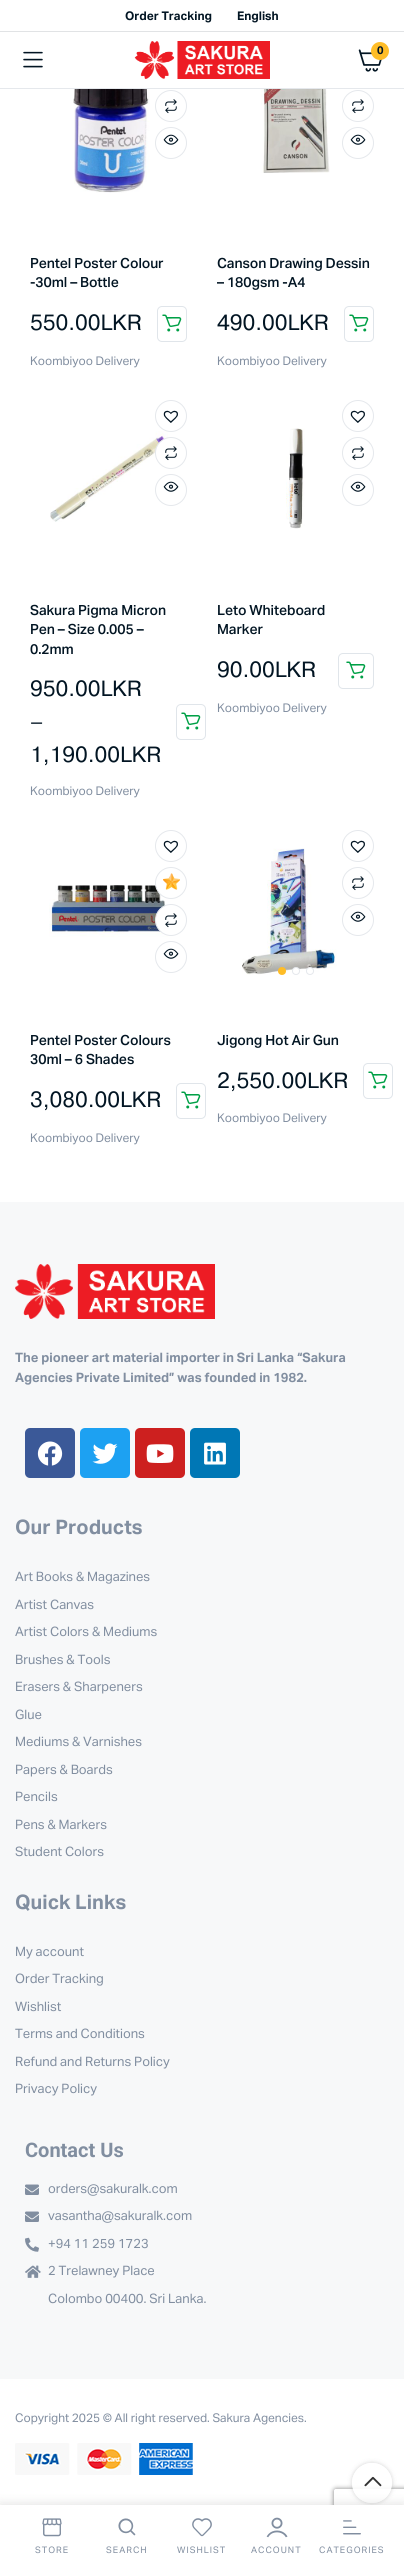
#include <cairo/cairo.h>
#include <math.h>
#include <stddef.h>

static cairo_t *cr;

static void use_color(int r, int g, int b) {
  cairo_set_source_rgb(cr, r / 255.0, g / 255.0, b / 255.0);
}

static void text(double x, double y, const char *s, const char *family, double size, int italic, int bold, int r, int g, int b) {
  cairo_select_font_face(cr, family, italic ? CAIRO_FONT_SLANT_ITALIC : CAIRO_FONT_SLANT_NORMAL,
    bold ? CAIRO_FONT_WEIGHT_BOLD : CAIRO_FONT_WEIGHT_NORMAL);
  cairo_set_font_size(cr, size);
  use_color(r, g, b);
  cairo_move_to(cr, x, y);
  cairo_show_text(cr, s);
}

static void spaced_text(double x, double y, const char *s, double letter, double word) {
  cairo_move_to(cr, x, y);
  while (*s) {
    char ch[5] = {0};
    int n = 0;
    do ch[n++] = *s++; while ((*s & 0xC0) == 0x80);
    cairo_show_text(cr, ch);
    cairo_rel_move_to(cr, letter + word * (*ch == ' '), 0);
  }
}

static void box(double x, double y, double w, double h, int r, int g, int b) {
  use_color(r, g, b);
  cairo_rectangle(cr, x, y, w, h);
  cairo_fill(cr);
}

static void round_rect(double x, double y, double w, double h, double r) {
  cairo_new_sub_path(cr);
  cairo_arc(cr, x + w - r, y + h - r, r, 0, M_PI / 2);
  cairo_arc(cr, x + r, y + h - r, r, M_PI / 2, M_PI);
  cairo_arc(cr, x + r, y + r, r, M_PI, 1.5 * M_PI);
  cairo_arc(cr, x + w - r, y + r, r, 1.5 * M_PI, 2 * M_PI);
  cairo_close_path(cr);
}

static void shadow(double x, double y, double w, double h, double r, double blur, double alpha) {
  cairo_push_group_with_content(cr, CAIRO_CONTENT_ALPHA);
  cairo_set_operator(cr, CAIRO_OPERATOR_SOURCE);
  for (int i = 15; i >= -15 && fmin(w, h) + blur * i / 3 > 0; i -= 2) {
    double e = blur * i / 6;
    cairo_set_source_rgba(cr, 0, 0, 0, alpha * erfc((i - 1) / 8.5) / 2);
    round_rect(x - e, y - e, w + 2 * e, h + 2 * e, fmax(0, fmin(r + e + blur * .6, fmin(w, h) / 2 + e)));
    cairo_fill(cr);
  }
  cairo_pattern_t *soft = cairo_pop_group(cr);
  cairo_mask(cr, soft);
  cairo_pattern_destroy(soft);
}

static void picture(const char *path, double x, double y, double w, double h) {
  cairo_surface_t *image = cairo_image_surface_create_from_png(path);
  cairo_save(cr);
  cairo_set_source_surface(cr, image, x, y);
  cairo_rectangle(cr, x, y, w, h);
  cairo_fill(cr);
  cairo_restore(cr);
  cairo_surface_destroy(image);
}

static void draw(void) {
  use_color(255, 255, 255);
  cairo_paint(cr);
  box(0, 88, 404, 1, 229, 232, 236);
  box(0, 31, 404, 1, 225, 227, 229);
  picture("img_01.png", 23, 51, 20, 17);
  picture("img_02.png", 134, 41, 136, 38);
  picture("img_03.png", 358, 49, 24, 23);
  use_color(255, 189, 39);
  cairo_arc(cr, 380, 51, 9, 0, 2 * M_PI);
  cairo_fill(cr);
  picture("img_04.png", 73, 89, 77, 104);
  cairo_arc(cr, 171, 106, 15.5, 0, 2 * M_PI);
  use_color(229, 232, 236);
  cairo_set_line_width(cr, 1);
  cairo_stroke(cr);
  picture("img_05.png", 165, 99, 12, 15);
  cairo_arc(cr, 171, 143, 15.5, 0, 2 * M_PI);
  cairo_stroke(cr);
  picture("img_06.png", 163, 134, 16, 11);
  round_rect(157.5, 306.5, 29, 35, 4.5);
  use_color(224, 229, 234);
  cairo_stroke(cr);
  picture("img_07.png", 162, 314, 20, 18);
  picture("img_08.png", 261, 89, 69, 84);
  cairo_arc(cr, 358, 106, 15.5, 0, 2 * M_PI);
  use_color(229, 232, 236);
  cairo_stroke(cr);
  picture("img_05.png", 352, 99, 12, 15);
  cairo_arc(cr, 358, 143, 15.5, 0, 2 * M_PI);
  cairo_stroke(cr);
  picture("img_06.png", 350, 134, 16, 11);
  round_rect(344.5, 306.5, 29, 35, 4.5);
  use_color(224, 229, 234);
  cairo_stroke(cr);
  picture("img_07.png", 349, 314, 20, 18);
  cairo_new_path(cr);
  cairo_move_to(cr, 353, 330);
  cairo_curve_to(cr, 349.5, 326.5, 349.5, 321.5, 353, 318);
  use_color(255, 255, 255);
  cairo_stroke(cr);
  picture("img_09.png", 50, 431, 118, 91);
  cairo_arc(cr, 171, 416, 15.5, 0, 2 * M_PI);
  use_color(229, 232, 236);
  cairo_stroke(cr);
  picture("img_10.png", 163, 410, 15, 13);
  use_color(255, 255, 255);
  cairo_arc(cr, 171, 453, 15.5, 0, 2 * M_PI);
  cairo_fill_preserve(cr);
  use_color(229, 232, 236);
  cairo_stroke(cr);
  picture("img_05.png", 165, 446, 12, 15);
  cairo_arc(cr, 171, 490, 15.5, 0, 2 * M_PI);
  cairo_stroke(cr);
  picture("img_06.png", 163, 481, 16, 11);
  round_rect(176.5, 704.5, 29, 35, 4.5);
  use_color(224, 229, 234);
  cairo_stroke(cr);
  picture("img_07.png", 181, 712, 20, 18);
  picture("img_11.png", 286, 428, 19, 101);
  cairo_arc(cr, 358, 416, 15.5, 0, 2 * M_PI);
  use_color(229, 232, 236);
  cairo_stroke(cr);
  picture("img_10.png", 350, 410, 15, 13);
  cairo_arc(cr, 358, 453, 15.5, 0, 2 * M_PI);
  cairo_stroke(cr);
  picture("img_05.png", 352, 446, 12, 15);
  cairo_arc(cr, 358, 490, 15.5, 0, 2 * M_PI);
  cairo_stroke(cr);
  picture("img_06.png", 350, 481, 16, 11);
  round_rect(338.5, 653.5, 35, 35, 4.5);
  use_color(224, 229, 234);
  cairo_stroke(cr);
  picture("img_07.png", 346, 661, 20, 18);
  picture("img_12.png", 49, 885, 119, 52);
  cairo_arc(cr, 171, 846, 15.5, 0, 2 * M_PI);
  use_color(229, 232, 236);
  cairo_stroke(cr);
  picture("img_10.png", 163, 840, 15, 13);
  use_color(255, 255, 255);
  cairo_arc(cr, 171, 883, 15.5, 0, 2 * M_PI);
  cairo_fill_preserve(cr);
  use_color(229, 232, 236);
  cairo_stroke(cr);
  picture("img_13.png", 163, 873, 17, 17);
  use_color(255, 255, 255);
  cairo_arc(cr, 171, 920, 15.5, 0, 2 * M_PI);
  cairo_fill_preserve(cr);
  use_color(229, 232, 236);
  cairo_stroke(cr);
  picture("img_05.png", 165, 913, 12, 15);
  cairo_arc(cr, 171, 957, 15.5, 0, 2 * M_PI);
  cairo_stroke(cr);
  picture("img_06.png", 163, 948, 16, 11);
  round_rect(176.5, 1083.5, 29, 35, 4.5);
  use_color(224, 229, 234);
  cairo_stroke(cr);
  picture("img_07.png", 181, 1091, 20, 18);
  cairo_new_path(cr);
  cairo_move_to(cr, 185, 1107);
  cairo_curve_to(cr, 181.5, 1103.5, 181.5, 1098.5, 185, 1095);
  use_color(255, 255, 255);
  cairo_stroke(cr);
  picture("img_14.png", 242, 848, 95, 127);
  use_color(255, 189, 39);
  cairo_arc(cr, 282, 971, 4, 0, 2 * M_PI);
  cairo_fill(cr);
  use_color(255, 255, 255);
  cairo_arc(cr, 296, 971, 3.5, 0, 2 * M_PI);
  cairo_fill_preserve(cr);
  use_color(229, 232, 236);
  cairo_stroke(cr);
  use_color(255, 255, 255);
  cairo_arc(cr, 310, 971, 3.5, 0, 2 * M_PI);
  cairo_fill_preserve(cr);
  use_color(229, 232, 236);
  cairo_stroke(cr);
  cairo_arc(cr, 358, 846, 15.5, 0, 2 * M_PI);
  cairo_stroke(cr);
  picture("img_10.png", 350, 840, 15, 13);
  cairo_arc(cr, 358, 883, 15.5, 0, 2 * M_PI);
  cairo_stroke(cr);
  picture("img_05.png", 352, 876, 12, 15);
  cairo_arc(cr, 358, 920, 15.5, 0, 2 * M_PI);
  cairo_stroke(cr);
  picture("img_06.png", 350, 911, 16, 11);
  round_rect(363.5, 1063.5, 29, 35, 4.5);
  use_color(224, 229, 234);
  cairo_stroke(cr);
  picture("img_07.png", 368, 1071, 20, 18);
  cairo_new_path(cr);
  cairo_move_to(cr, 372, 1087);
  cairo_curve_to(cr, 368.5, 1083.5, 368.5, 1078.5, 372, 1075);
  use_color(255, 255, 255);
  cairo_stroke(cr);
  box(0, 1202, 404, 1177, 247, 248, 249);
  picture("img_15.png", 15, 1264, 200, 55);
  use_color(59, 89, 152);
  round_rect(25, 1428, 50, 50, 5);
  cairo_fill(cr);
  picture("img_16.png", 37, 1441, 26, 25);
  use_color(29, 161, 242);
  round_rect(80, 1428, 50, 50, 5);
  cairo_fill(cr);
  picture("img_17.png", 92, 1443, 26, 21);
  use_color(205, 32, 31);
  round_rect(135, 1428, 50, 50, 5);
  cairo_fill(cr);
  picture("img_18.png", 146, 1444, 28, 19);
  use_color(0, 119, 181);
  round_rect(190, 1428, 50, 50, 5);
  cairo_fill(cr);
  picture("img_19.png", 204, 1442, 22, 23);
  picture("img_20.png", 25, 2184, 14, 11);
  picture("img_20.png", 25, 2211, 14, 11);
  picture("img_21.png", 25, 2237, 14, 15);
  picture("img_22.png", 25, 2265, 16, 13);
  picture("img_23.png", 15, 2443, 178, 32);
  cairo_save(cr);
  cairo_set_fill_rule(cr, CAIRO_FILL_RULE_EVEN_ODD);
  cairo_new_path(cr);
  cairo_move_to(cr, 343, 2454);
  cairo_line_to(cr, 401, 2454);
  cairo_line_to(cr, 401, 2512);
  cairo_line_to(cr, 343, 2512);
  cairo_close_path(cr);
  cairo_move_to(cr, 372, 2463);
  cairo_curve_to(cr, 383, 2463, 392, 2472, 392, 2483);
  cairo_curve_to(cr, 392, 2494, 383, 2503, 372, 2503);
  cairo_curve_to(cr, 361, 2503, 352, 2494, 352, 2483);
  cairo_curve_to(cr, 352, 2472, 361, 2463, 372, 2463);
  cairo_close_path(cr);
  cairo_clip(cr);
  use_color(0, 0, 0);
  shadow(352, 2463, 40, 40, 20, 2.5, 0.17);
  cairo_restore(cr);
  cairo_save(cr);
  cairo_set_fill_rule(cr, CAIRO_FILL_RULE_EVEN_ODD);
  cairo_new_path(cr);
  cairo_move_to(cr, 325, 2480);
  cairo_line_to(cr, 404, 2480);
  cairo_line_to(cr, 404, 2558);
  cairo_line_to(cr, 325, 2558);
  cairo_close_path(cr);
  cairo_move_to(cr, 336, 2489);
  cairo_line_to(cr, 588, 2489);
  cairo_curve_to(cr, 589, 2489, 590, 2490, 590, 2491);
  cairo_line_to(cr, 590, 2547);
  cairo_curve_to(cr, 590, 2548, 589, 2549, 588, 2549);
  cairo_line_to(cr, 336, 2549);
  cairo_curve_to(cr, 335, 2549, 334, 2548, 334, 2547);
  cairo_line_to(cr, 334, 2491);
  cairo_curve_to(cr, 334, 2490, 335, 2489, 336, 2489);
  cairo_close_path(cr);
  cairo_clip(cr);
  use_color(128, 128, 128);
  shadow(334, 2489, 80, 60, 2, 2.5, 1);
  cairo_restore(cr);
  cairo_set_source_rgba(cr, 1, 1, 1, 0.9);
  cairo_arc(cr, 372, 2483, 20, 0, 2 * M_PI);
  cairo_fill(cr);
  picture("img_24.png", 364, 2476, 18, 11);
  use_color(0, 0, 0);
  shadow(0, 2503, 404, 58, 0, 5, 0.1);
  box(0, 2505, 404, 58, 255, 255, 255);
  picture("img_25.png", 42, 2518, 20, 19);
  picture("img_26.png", 118, 2518, 18, 18);
  picture("img_27.png", 192, 2518, 20, 19);
  picture("img_28.png", 266, 2517, 22, 21);
  picture("img_29.png", 343, 2520, 18, 15);
  cairo_select_font_face(cr, "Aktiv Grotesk", CAIRO_FONT_SLANT_NORMAL, CAIRO_FONT_WEIGHT_BOLD);
  cairo_set_font_size(cr, 12);
  use_color(2, 21, 35);
  spaced_text(125, 20, "Order Tracking", -0.03, 0);
  spaced_text(237, 20, "English", -0.03, 0);
  cairo_set_font_size(cr, 11);
  spaced_text(377, 54, "0", -0.03, 0);
  cairo_select_font_face(cr, "Aktiv Grotesk Medium", CAIRO_FONT_SLANT_NORMAL, CAIRO_FONT_WEIGHT_NORMAL);
  cairo_set_font_size(cr, 14);
  spaced_text(30, 268, "Pentel Poster Colour", -0.1, 0);
  spaced_text(30, 287, "-30ml – Bottle", -0.1, 0);
  cairo_select_font_face(cr, "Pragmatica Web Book", CAIRO_FONT_SLANT_NORMAL, CAIRO_FONT_WEIGHT_NORMAL);
  cairo_set_font_size(cr, 22);
  spaced_text(30, 330, "550.00LKR", -0.03, 0);
  cairo_select_font_face(cr, "Aktiv Grotesk", CAIRO_FONT_SLANT_NORMAL, CAIRO_FONT_WEIGHT_NORMAL);
  cairo_set_font_size(cr, 12);
  use_color(129, 142, 160);
  spaced_text(30, 365, "Koombiyoo Delivery", -0.03, 0);
  cairo_select_font_face(cr, "Aktiv Grotesk Medium", CAIRO_FONT_SLANT_NORMAL, CAIRO_FONT_WEIGHT_NORMAL);
  cairo_set_font_size(cr, 14);
  use_color(2, 21, 35);
  spaced_text(217, 268, "Canson Drawing Dessin", -0.1, 0);
  spaced_text(217, 287, "– 180gsm -A4", -0.1, 0);
  cairo_select_font_face(cr, "Pragmatica Web Book", CAIRO_FONT_SLANT_NORMAL, CAIRO_FONT_WEIGHT_NORMAL);
  cairo_set_font_size(cr, 22);
  spaced_text(217, 330, "490.00LKR", -0.03, 0);
  cairo_select_font_face(cr, "Aktiv Grotesk", CAIRO_FONT_SLANT_NORMAL, CAIRO_FONT_WEIGHT_NORMAL);
  cairo_set_font_size(cr, 12);
  use_color(129, 142, 160);
  spaced_text(217, 365, "Koombiyoo Delivery", -0.03, 0);
  cairo_select_font_face(cr, "Aktiv Grotesk Medium", CAIRO_FONT_SLANT_NORMAL, CAIRO_FONT_WEIGHT_NORMAL);
  cairo_set_font_size(cr, 14);
  use_color(2, 21, 35);
  spaced_text(30, 615, "Sakura Pigma Micron", -0.1, 0);
  spaced_text(30, 634, "Pen – Size 0.005 –", -0.1, 0);
  spaced_text(30, 654, "0.2mm", -0.1, 0);
  cairo_select_font_face(cr, "Pragmatica Web Book", CAIRO_FONT_SLANT_NORMAL, CAIRO_FONT_WEIGHT_NORMAL);
  cairo_set_font_size(cr, 22);
  spaced_text(30, 696, "950.00LKR", -0.03, 0);
  spaced_text(30, 729, "–", -0.03, 0);
  spaced_text(30, 762, "1,190.00LKR", -0.03, 0);
  cairo_select_font_face(cr, "Aktiv Grotesk", CAIRO_FONT_SLANT_NORMAL, CAIRO_FONT_WEIGHT_NORMAL);
  cairo_set_font_size(cr, 12);
  use_color(129, 142, 160);
  spaced_text(30, 795, "Koombiyoo Delivery", -0.03, 0);
  cairo_select_font_face(cr, "Aktiv Grotesk Medium", CAIRO_FONT_SLANT_NORMAL, CAIRO_FONT_WEIGHT_NORMAL);
  cairo_set_font_size(cr, 14);
  use_color(2, 21, 35);
  spaced_text(217, 615, "Leto Whiteboard", -0.1, 0);
  spaced_text(217, 634, "Marker", -0.1, 0);
  cairo_select_font_face(cr, "Pragmatica Web Book", CAIRO_FONT_SLANT_NORMAL, CAIRO_FONT_WEIGHT_NORMAL);
  cairo_set_font_size(cr, 22);
  spaced_text(217, 677, "90.00LKR", -0.03, 0);
  cairo_select_font_face(cr, "Aktiv Grotesk", CAIRO_FONT_SLANT_NORMAL, CAIRO_FONT_WEIGHT_NORMAL);
  cairo_set_font_size(cr, 12);
  use_color(129, 142, 160);
  spaced_text(217, 712, "Koombiyoo Delivery", -0.03, 0);
  cairo_select_font_face(cr, "Aktiv Grotesk Medium", CAIRO_FONT_SLANT_NORMAL, CAIRO_FONT_WEIGHT_NORMAL);
  cairo_set_font_size(cr, 14);
  use_color(2, 21, 35);
  spaced_text(30, 1045, "Pentel Poster Colours", -0.1, 0);
  spaced_text(30, 1064, "30ml – 6 Shades", -0.1, 0);
  cairo_select_font_face(cr, "Pragmatica Web Book", CAIRO_FONT_SLANT_NORMAL, CAIRO_FONT_WEIGHT_NORMAL);
  cairo_set_font_size(cr, 22);
  spaced_text(30, 1107, "3,080.00LKR", -0.03, 0);
  cairo_select_font_face(cr, "Aktiv Grotesk", CAIRO_FONT_SLANT_NORMAL, CAIRO_FONT_WEIGHT_NORMAL);
  cairo_set_font_size(cr, 12);
  use_color(129, 142, 160);
  spaced_text(30, 1142, "Koombiyoo Delivery", -0.03, 0);
  cairo_select_font_face(cr, "Aktiv Grotesk Medium", CAIRO_FONT_SLANT_NORMAL, CAIRO_FONT_WEIGHT_NORMAL);
  cairo_set_font_size(cr, 14);
  use_color(2, 21, 35);
  spaced_text(217, 1045, "Jigong Hot Air Gun", -0.1, 0);
  cairo_select_font_face(cr, "Pragmatica Web Book", CAIRO_FONT_SLANT_NORMAL, CAIRO_FONT_WEIGHT_NORMAL);
  cairo_set_font_size(cr, 22);
  spaced_text(217, 1088, "2,550.00LKR", -0.03, 0);
  cairo_select_font_face(cr, "Aktiv Grotesk", CAIRO_FONT_SLANT_NORMAL, CAIRO_FONT_WEIGHT_NORMAL);
  cairo_set_font_size(cr, 12);
  use_color(129, 142, 160);
  spaced_text(217, 1122, "Koombiyoo Delivery", -0.03, 0);
  cairo_select_font_face(cr, "Aktiv Grotesk", CAIRO_FONT_SLANT_NORMAL, CAIRO_FONT_WEIGHT_BOLD);
  cairo_set_font_size(cr, 13);
  spaced_text(15, 1362, "The pioneer art material importer in Sri Lanka “Sakura", -0.03, 0);
  spaced_text(15, 1382, "Agencies Private Limited” was founded in 1982.", -0.03, 0);
  text(15, 1534, "Our Products", "Aktiv Grotesk", 20, 0, 1, 129, 142, 160);
  cairo_select_font_face(cr, "Aktiv Grotesk", CAIRO_FONT_SLANT_NORMAL, CAIRO_FONT_WEIGHT_NORMAL);
  cairo_set_font_size(cr, 13);
  spaced_text(15, 1581, "Art Books & Magazines", -0.03, 0);
  spaced_text(15, 1609, "Artist Canvas", -0.03, 0);
  spaced_text(15, 1636, "Artist Colors & Mediums", -0.03, 0);
  spaced_text(15, 1664, "Brushes & Tools", -0.03, 0);
  spaced_text(15, 1691, "Erasers & Sharpeners", -0.03, 0);
  spaced_text(15, 1719, "Glue", -0.03, 0);
  spaced_text(15, 1746, "Mediums & Varnishes", -0.03, 0);
  spaced_text(15, 1774, "Papers & Boards", -0.03, 0);
  spaced_text(15, 1801, "Pencils", -0.03, 0);
  spaced_text(15, 1829, "Pens & Markers", -0.03, 0);
  spaced_text(15, 1856, "Student Colors", -0.03, 0);
  text(15, 1909, "Quick Links", "Aktiv Grotesk", 20, 0, 1, 129, 142, 160);
  cairo_select_font_face(cr, "Aktiv Grotesk", CAIRO_FONT_SLANT_NORMAL, CAIRO_FONT_WEIGHT_NORMAL);
  cairo_set_font_size(cr, 13);
  spaced_text(15, 1956, "My account", -0.03, 0);
  spaced_text(15, 1983, "Order Tracking", -0.03, 0);
  spaced_text(15, 2011, "Wishlist", -0.03, 0);
  spaced_text(15, 2038, "Terms and Conditions", -0.03, 0);
  spaced_text(15, 2066, "Refund and Returns Policy", -0.03, 0);
  spaced_text(15, 2093, "Privacy Policy", -0.03, 0);
  text(25, 2157, "Contact Us", "Roboto", 20, 0, 1, 129, 142, 160);
  cairo_select_font_face(cr, "Aktiv Grotesk", CAIRO_FONT_SLANT_NORMAL, CAIRO_FONT_WEIGHT_NORMAL);
  cairo_set_font_size(cr, 13);
  spaced_text(48, 2193, "orders@sakuralk.com", -0.03, 0);
  spaced_text(48, 2220, "vasantha@sakuralk.com", -0.03, 0);
  spaced_text(48, 2248, "+94 11 259 1723", -0.03, 0);
  spaced_text(48, 2275, "2 Trelawney Place", -0.03, 0);
  spaced_text(48, 2303, "Colombo 00400. Sri Lanka.", -0.03, 0);
  cairo_set_font_size(cr, 12);
  spaced_text(15, 2422, "Copyright 2025 © All right reserved. Sakura Agencies.", -0.03, 0);
  cairo_set_font_size(cr, 9);
  spaced_text(35, 2553, "STORE", 1, 0);
  spaced_text(106, 2553, "SEARCH", 1, 0);
  spaced_text(177, 2553, "WISHLIST", 1, 0);
  spaced_text(251, 2553, "ACCOUNT", 1, 0);
  spaced_text(319, 2553, "CATEGORIES", 1, 0);
}

int main(void) {
  cairo_surface_t *surface = cairo_image_surface_create(CAIRO_FORMAT_RGB24, 404, 2563);
  cr = cairo_create(surface);
  cairo_font_options_t *options = cairo_font_options_create();
  cairo_font_options_set_hint_metrics(options, CAIRO_HINT_METRICS_OFF);
  cairo_font_options_set_hint_style(options, CAIRO_HINT_STYLE_NONE);
  cairo_set_font_options(cr, options);
  cairo_set_miter_limit(cr, 4);
  draw();
  cairo_surface_write_to_png(surface, "out.png");
  cairo_font_options_destroy(options);
  cairo_destroy(cr);
  cairo_surface_destroy(surface);
  return 0;
}
